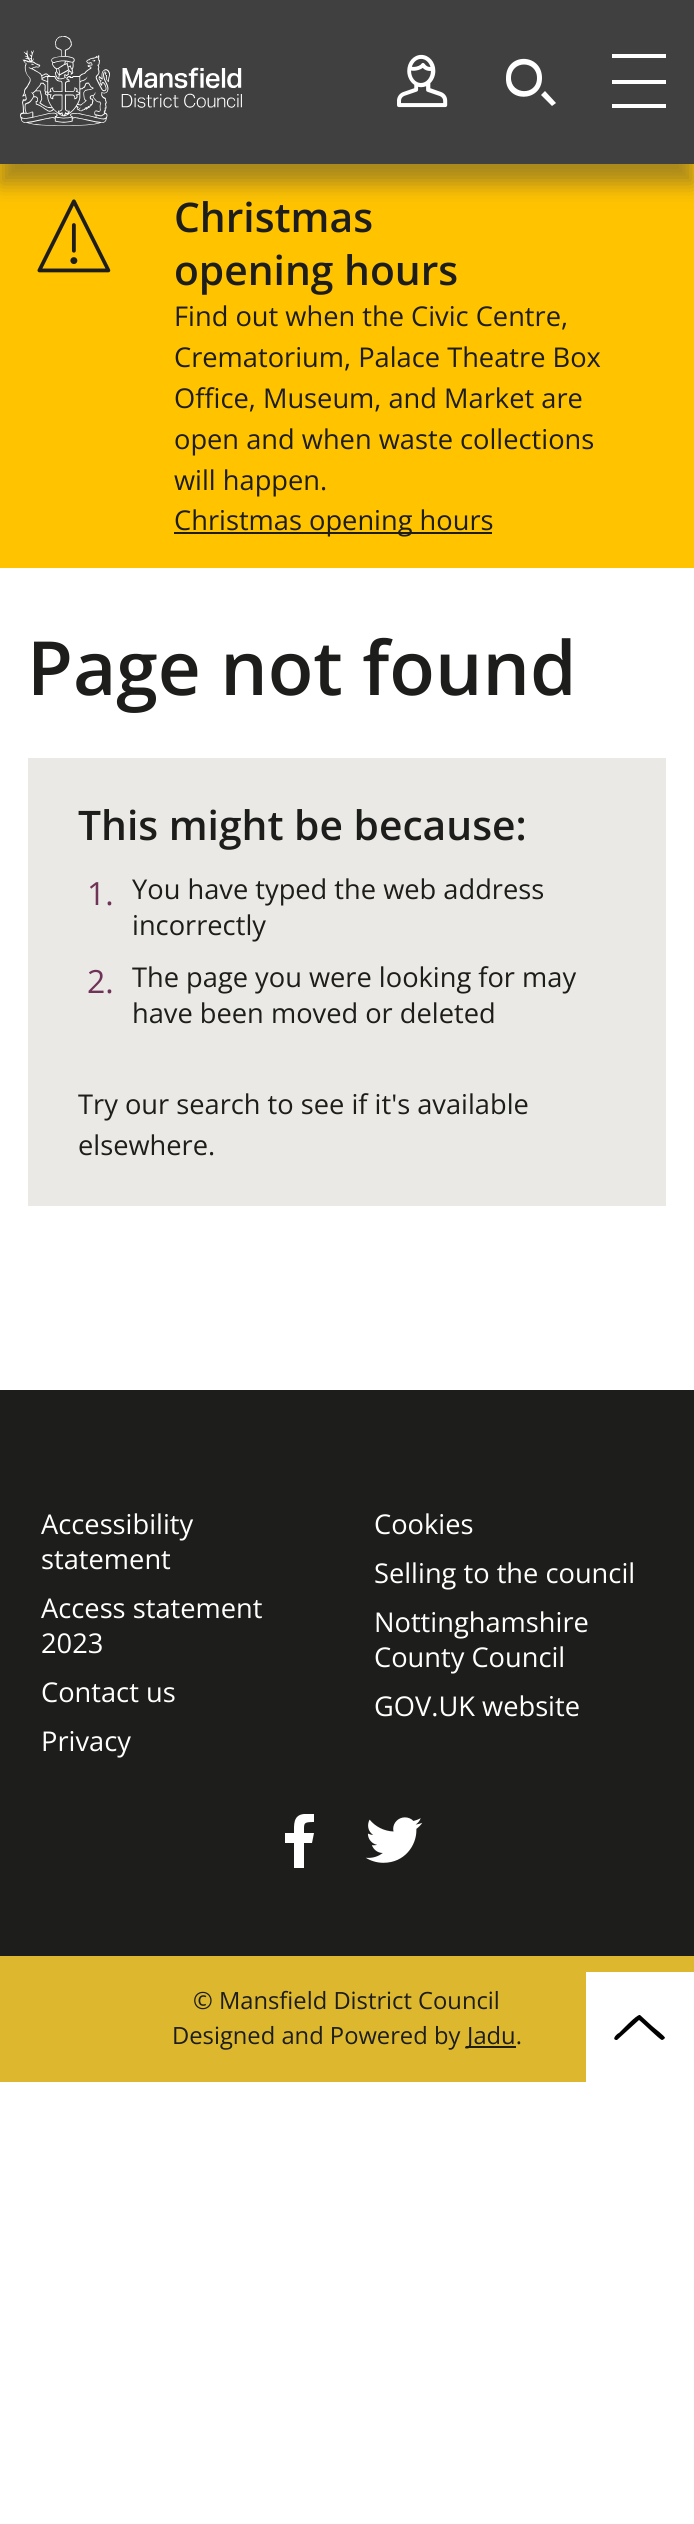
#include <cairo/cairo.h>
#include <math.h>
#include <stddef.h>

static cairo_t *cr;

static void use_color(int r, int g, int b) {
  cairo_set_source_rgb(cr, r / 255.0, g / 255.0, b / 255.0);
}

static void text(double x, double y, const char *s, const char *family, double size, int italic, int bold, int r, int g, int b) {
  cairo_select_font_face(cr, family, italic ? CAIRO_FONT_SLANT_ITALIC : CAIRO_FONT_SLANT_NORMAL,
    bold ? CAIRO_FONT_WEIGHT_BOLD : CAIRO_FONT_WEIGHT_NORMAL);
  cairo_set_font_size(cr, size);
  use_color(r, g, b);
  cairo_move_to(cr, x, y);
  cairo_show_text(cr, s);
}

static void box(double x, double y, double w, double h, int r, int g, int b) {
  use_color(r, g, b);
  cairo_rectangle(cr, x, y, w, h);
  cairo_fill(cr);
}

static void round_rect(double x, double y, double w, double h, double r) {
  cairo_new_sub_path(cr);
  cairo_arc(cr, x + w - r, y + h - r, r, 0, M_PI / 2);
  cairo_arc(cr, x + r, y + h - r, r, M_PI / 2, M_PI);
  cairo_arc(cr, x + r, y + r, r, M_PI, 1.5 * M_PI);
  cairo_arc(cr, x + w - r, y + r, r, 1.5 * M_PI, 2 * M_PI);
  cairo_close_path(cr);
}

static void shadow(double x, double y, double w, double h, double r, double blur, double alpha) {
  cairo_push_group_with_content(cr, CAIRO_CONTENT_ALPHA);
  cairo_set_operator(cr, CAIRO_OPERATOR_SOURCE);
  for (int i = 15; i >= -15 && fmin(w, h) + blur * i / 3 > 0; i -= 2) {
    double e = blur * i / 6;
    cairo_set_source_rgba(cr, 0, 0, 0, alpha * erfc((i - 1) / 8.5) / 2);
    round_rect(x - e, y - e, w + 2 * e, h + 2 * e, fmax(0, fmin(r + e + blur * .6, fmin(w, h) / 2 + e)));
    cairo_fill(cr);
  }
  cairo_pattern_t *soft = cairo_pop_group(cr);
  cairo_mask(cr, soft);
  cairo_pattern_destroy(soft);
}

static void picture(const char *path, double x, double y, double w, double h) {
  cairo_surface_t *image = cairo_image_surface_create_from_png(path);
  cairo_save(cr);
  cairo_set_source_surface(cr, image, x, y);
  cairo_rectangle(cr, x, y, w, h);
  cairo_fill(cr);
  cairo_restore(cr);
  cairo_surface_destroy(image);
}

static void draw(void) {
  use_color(255, 255, 255);
  cairo_paint(cr);
  box(0, 164, 694, 404, 255, 195, 0);
  picture("img_03.png", 37, 199, 74, 74);
  use_color(64, 64, 64);
  shadow(0, 20, 694, 164, 0, 10, 0.45);
  box(0, 0, 694, 164, 64, 64, 64);
  picture("img_01.png", 20, 36, 222, 90);
  picture("img_02.png", 397, 54, 51, 54);
  use_color(255, 255, 255);
  cairo_new_path(cr);
  cairo_move_to(cr, 537, 78);
  cairo_curve_to(cr, 537, 60, 511, 60, 511, 78);
  cairo_curve_to(cr, 511, 95, 537, 96, 537, 78);
  cairo_close_path(cr);
  cairo_move_to(cr, 542, 78);
  cairo_curve_to(cr, 542, 103, 505, 103, 506, 78);
  cairo_curve_to(cr, 506, 52, 542, 53, 542, 78);
  cairo_close_path(cr);
  cairo_move_to(cr, 545, 91);
  cairo_line_to(cr, 556, 103);
  cairo_line_to(cr, 552, 106);
  cairo_line_to(cr, 541, 95);
  cairo_close_path(cr);
  cairo_fill(cr);
  box(612, 54, 54, 4, 255, 255, 255);
  box(612, 80, 54, 4, 255, 255, 255);
  box(612, 104, 54, 4, 255, 255, 255);
  box(174, 532, 318, 2, 29, 29, 27);
  box(28, 758, 638, 448, 234, 233, 229);
  box(0, 1390, 694, 566, 29, 29, 27);
  use_color(255, 255, 255);
  cairo_new_path(cr);
  cairo_move_to(cr, 314, 1822);
  cairo_curve_to(cr, 303, 1822, 304, 1823, 304, 1833);
  cairo_line_to(cr, 314, 1833);
  cairo_line_to(cr, 312, 1843);
  cairo_line_to(cr, 304, 1843);
  cairo_line_to(cr, 304, 1868);
  cairo_line_to(cr, 294, 1868);
  cairo_line_to(cr, 294, 1843);
  cairo_line_to(cr, 285, 1843);
  cairo_line_to(cr, 285, 1833);
  cairo_line_to(cr, 294, 1833);
  cairo_curve_to(cr, 294, 1825, 293, 1815, 304, 1814);
  cairo_line_to(cr, 314, 1814);
  cairo_close_path(cr);
  cairo_fill(cr);
  picture("img_04.png", 365, 1817, 58, 46);
  box(0, 1956, 694, 126, 221, 184, 47);
  box(586, 1972, 108, 110, 255, 255, 255);
  use_color(0, 0, 0);
  cairo_new_path(cr);
  cairo_move_to(cr, 662, 2040);
  cairo_curve_to(cr, 660, 2040, 642, 2022, 639, 2020);
  cairo_line_to(cr, 617, 2040);
  cairo_line_to(cr, 616, 2040);
  cairo_curve_to(cr, 611, 2039, 618, 2033, 619, 2033);
  cairo_line_to(cr, 626, 2026);
  cairo_curve_to(cr, 628, 2024, 638, 2014, 640, 2015);
  cairo_line_to(cr, 652, 2026);
  cairo_curve_to(cr, 654, 2028, 665, 2036, 665, 2038);
  cairo_curve_to(cr, 664, 2039, 663, 2040, 662, 2040);
  cairo_close_path(cr);
  cairo_fill(cr);
  box(466, 2046, 50, 2, 29, 29, 27);
  text(174, 232, "Christmas", "Open Sans SemiBold", 40.75, 0, 0, 29, 29, 27);
  text(174, 285, "opening hours", "Open Sans SemiBold", 40.75, 0, 0, 29, 29, 27);
  text(174, 326, "Find out when the Civic Centre,", "Open Sans", 27.25, 0, 0, 29, 29, 27);
  text(174, 367, "Crematorium, Palace Theatre Box", "Open Sans", 27.25, 0, 0, 29, 29, 27);
  text(174, 408, "Office, Museum, and Market are", "Open Sans", 27.25, 0, 0, 29, 29, 27);
  text(174, 449, "open and when waste collections", "Open Sans", 27.25, 0, 0, 29, 29, 27);
  text(174, 490, "will happen.", "Open Sans", 27.25, 0, 0, 29, 29, 27);
  text(174, 530, "Christmas opening hours", "Open Sans", 27.25, 0, 0, 29, 29, 27);
  text(27, 695, "Page not found", "Open Sans SemiBold", 74.75, 0, 0, 29, 29, 27);
  text(78, 840, "This might be because:", "Open Sans SemiBold", 40.75, 0, 0, 29, 29, 27);
  text(87, 905, "1.", "Open Sans", 32, 0, 0, 110, 51, 87);
  text(132, 899, "You have typed the web address", "Open Sans", 27.25, 0, 0, 29, 29, 27);
  text(132, 935, "incorrectly", "Open Sans", 27.25, 0, 0, 29, 29, 27);
  text(87, 993, "2.", "Open Sans", 32, 0, 0, 110, 51, 87);
  text(132, 987, "The page you were looking for may", "Open Sans", 27.25, 0, 0, 29, 29, 27);
  text(132, 1023, "have been moved or deleted", "Open Sans", 27.25, 0, 0, 29, 29, 27);
  text(78, 1114, "Try our search to see if it's available", "Open Sans", 27.25, 0, 0, 29, 29, 27);
  text(78, 1155, "elsewhere.", "Open Sans", 27.25, 0, 0, 29, 29, 27);
  text(41, 1534, "Accessibility", "Open Sans", 27.25, 0, 0, 255, 255, 255);
  text(41, 1569, "statement", "Open Sans", 27.25, 0, 0, 255, 255, 255);
  text(374, 1534, "Cookies", "Open Sans", 27.25, 0, 0, 255, 255, 255);
  text(374, 1583, "Selling to the council", "Open Sans", 27.25, 0, 0, 255, 255, 255);
  text(41, 1618, "Access statement", "Open Sans", 27.25, 0, 0, 255, 255, 255);
  text(41, 1653, "2023", "Open Sans", 27.25, 0, 0, 255, 255, 255);
  text(374, 1632, "Nottinghamshire", "Open Sans", 27.25, 0, 0, 255, 255, 255);
  text(374, 1667, "County Council", "Open Sans", 27.25, 0, 0, 255, 255, 255);
  text(41, 1702, "Contact us", "Open Sans", 27.25, 0, 0, 255, 255, 255);
  text(374, 1716, "GOV.UK website", "Open Sans", 27.25, 0, 0, 255, 255, 255);
  text(41, 1751, "Privacy", "Open Sans", 27.25, 0, 0, 255, 255, 255);
  text(193, 2009, "© Mansfield District Council", "Open Sans", 23.75, 0, 0, 29, 29, 27);
  text(172, 2044, "Designed and Powered by", "Open Sans", 23.75, 0, 0, 29, 29, 27);
  text(467, 2044, "Jadu.", "Open Sans", 23.75, 0, 0, 29, 29, 27);
}

int main(void) {
  cairo_surface_t *surface = cairo_image_surface_create(CAIRO_FORMAT_RGB24, 694, 2524);
  cr = cairo_create(surface);
  cairo_font_options_t *options = cairo_font_options_create();
  cairo_font_options_set_hint_metrics(options, CAIRO_HINT_METRICS_OFF);
  cairo_font_options_set_hint_style(options, CAIRO_HINT_STYLE_NONE);
  cairo_set_font_options(cr, options);
  cairo_set_miter_limit(cr, 4);
  draw();
  cairo_surface_write_to_png(surface, "out.png");
  cairo_font_options_destroy(options);
  cairo_destroy(cr);
  cairo_surface_destroy(surface);
  return 0;
}
